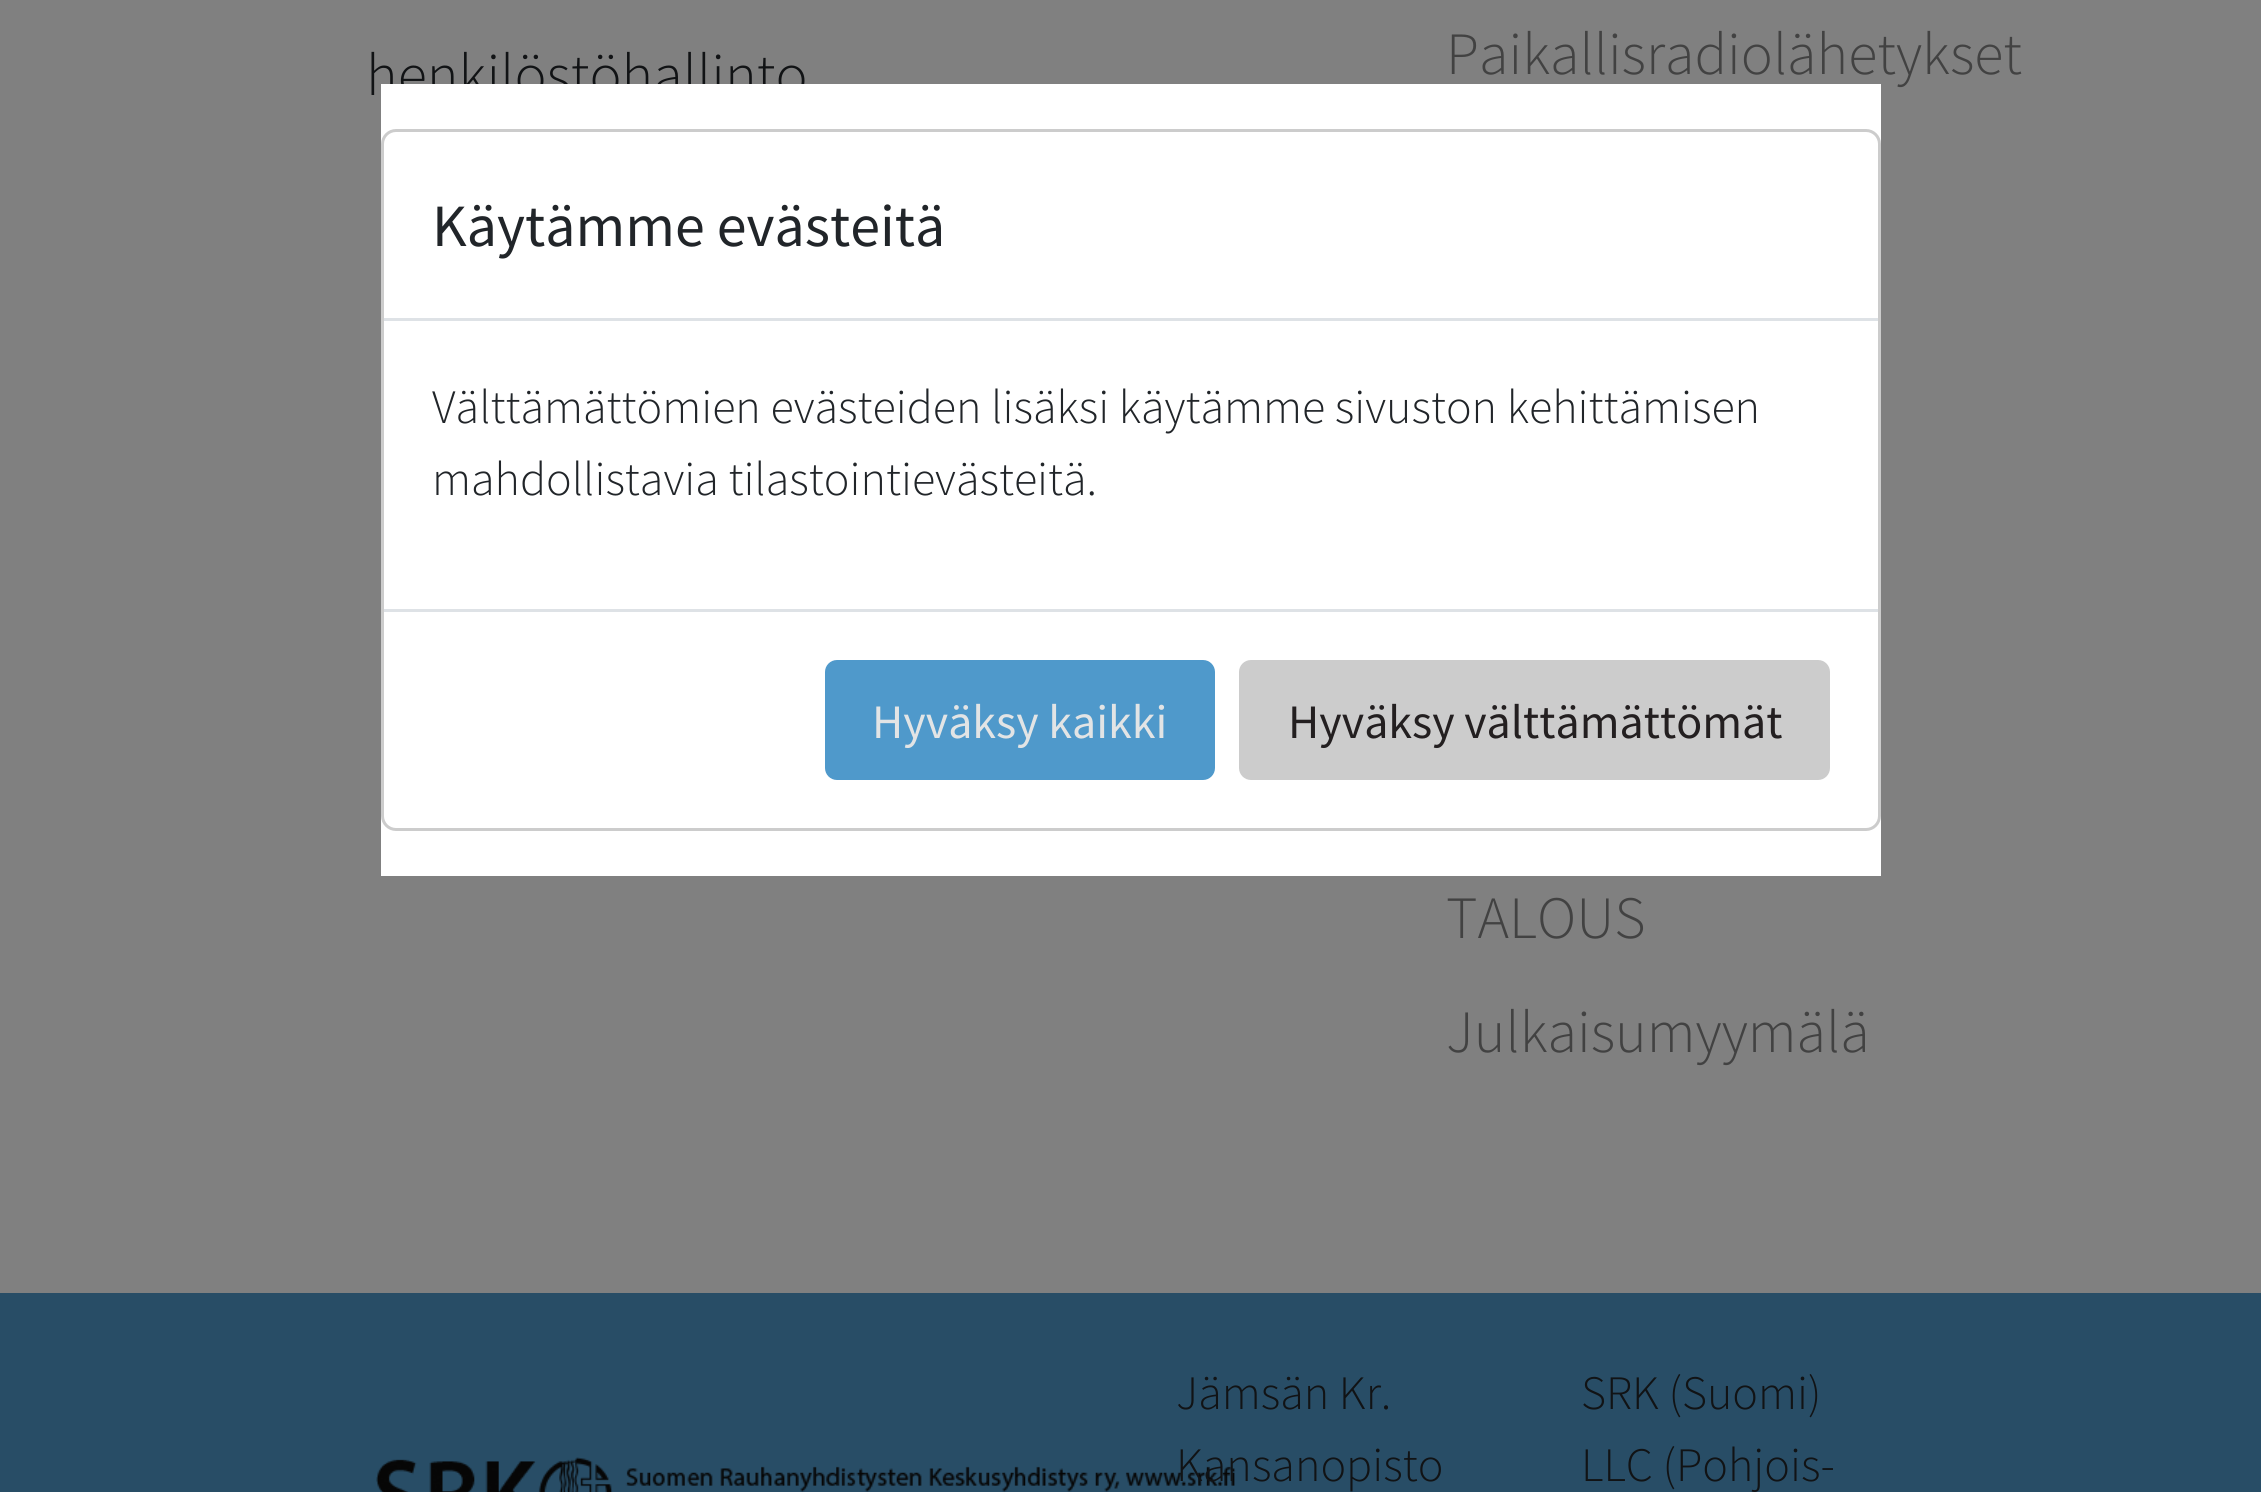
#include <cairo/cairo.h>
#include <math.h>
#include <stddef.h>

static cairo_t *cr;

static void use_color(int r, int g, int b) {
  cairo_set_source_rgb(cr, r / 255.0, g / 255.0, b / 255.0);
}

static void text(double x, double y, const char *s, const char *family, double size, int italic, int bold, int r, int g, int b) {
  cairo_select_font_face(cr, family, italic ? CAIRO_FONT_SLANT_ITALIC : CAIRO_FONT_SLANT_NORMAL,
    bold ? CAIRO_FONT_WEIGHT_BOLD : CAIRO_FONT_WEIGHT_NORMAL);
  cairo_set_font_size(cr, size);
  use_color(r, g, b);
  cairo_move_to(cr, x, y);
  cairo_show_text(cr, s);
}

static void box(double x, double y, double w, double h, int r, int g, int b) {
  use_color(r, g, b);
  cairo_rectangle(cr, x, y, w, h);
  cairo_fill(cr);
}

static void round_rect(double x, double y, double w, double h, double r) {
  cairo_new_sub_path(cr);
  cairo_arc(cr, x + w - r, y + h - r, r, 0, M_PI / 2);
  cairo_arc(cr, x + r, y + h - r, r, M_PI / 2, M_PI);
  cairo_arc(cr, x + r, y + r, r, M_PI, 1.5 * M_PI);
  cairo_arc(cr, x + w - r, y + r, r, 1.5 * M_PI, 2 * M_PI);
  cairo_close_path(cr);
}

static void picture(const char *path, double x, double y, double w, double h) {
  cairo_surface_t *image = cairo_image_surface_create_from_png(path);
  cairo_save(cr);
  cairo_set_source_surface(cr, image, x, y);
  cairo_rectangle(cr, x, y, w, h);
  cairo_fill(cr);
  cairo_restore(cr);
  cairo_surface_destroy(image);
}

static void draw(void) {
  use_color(128, 128, 128);
  cairo_paint(cr);
  box(0, 1293, 2261, 199, 40, 77, 102);
  picture("img_01.png", 376, 1457, 860, 35);
  text(366, 95, "henkilöstöhallinto", "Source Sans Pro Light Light", 60, 0, 0, 17, 19, 21);
  text(1446, 74, "Paikallisradiolähetykset", "Source Sans Pro Light Light", 60, 0, 0, 66, 66, 66);
  text(1446, 938, "TALOUS", "Source Sans Pro Light Light", 60, 0, 0, 66, 66, 66);
  text(1446, 1052, "Julkaisumyymälä", "Source Sans Pro Light Light", 60, 0, 0, 66, 66, 66);
  box(381, 84, 1500, 792, 255, 255, 255);
  round_rect(382.5, 130.5, 1497, 699, 13.5);
  use_color(204, 204, 204);
  cairo_set_line_width(cr, 3);
  cairo_stroke(cr);
  box(384, 318, 1494, 3, 222, 226, 230);
  text(432, 246, "Käytämme evästeitä", "Source Sans Pro", 60, 0, 0, 33, 37, 41);
  text(432, 423, "Välttämättömien evästeiden lisäksi käytämme sivuston kehittämisen", "Source Sans Pro Light Light", 48, 0, 0, 33, 37, 41);
  text(432, 495, "mahdollistavia tilastointievästeitä.", "Source Sans Pro Light Light", 48, 0, 0, 33, 37, 41);
  box(384, 609, 1494, 3, 222, 226, 230);
  use_color(79, 153, 203);
  round_rect(825, 660, 390, 120, 12);
  cairo_fill(cr);
  text(872, 738, "Hyväksy kaikki", "Source Sans Pro", 48, 0, 0, 226, 228, 229);
  use_color(204, 204, 204);
  round_rect(1239, 660, 591, 120, 12);
  cairo_fill(cr);
  text(1288, 738, "Hyväksy välttämättömät", "Source Sans Pro", 48, 0, 0, 35, 31, 32);
  text(1176, 1409, "Jämsän Kr.", "Source Sans Pro Light Light", 48, 0, 0, 17, 19, 21);
  text(1176, 1481, "Kansanopisto", "Source Sans Pro Light Light", 48, 0, 0, 17, 19, 21);
  text(1581, 1409, "SRK (Suomi)", "Source Sans Pro Light Light", 48, 0, 0, 17, 19, 21);
  text(1581, 1481, "LLC (Pohjois-", "Source Sans Pro Light Light", 48, 0, 0, 17, 19, 21);
}

int main(void) {
  cairo_surface_t *surface = cairo_image_surface_create(CAIRO_FORMAT_RGB24, 2261, 1492);
  cr = cairo_create(surface);
  cairo_font_options_t *options = cairo_font_options_create();
  cairo_font_options_set_hint_metrics(options, CAIRO_HINT_METRICS_OFF);
  cairo_font_options_set_hint_style(options, CAIRO_HINT_STYLE_NONE);
  cairo_set_font_options(cr, options);
  cairo_set_miter_limit(cr, 4);
  draw();
  cairo_surface_write_to_png(surface, "out.png");
  cairo_font_options_destroy(options);
  cairo_destroy(cr);
  cairo_surface_destroy(surface);
  return 0;
}
